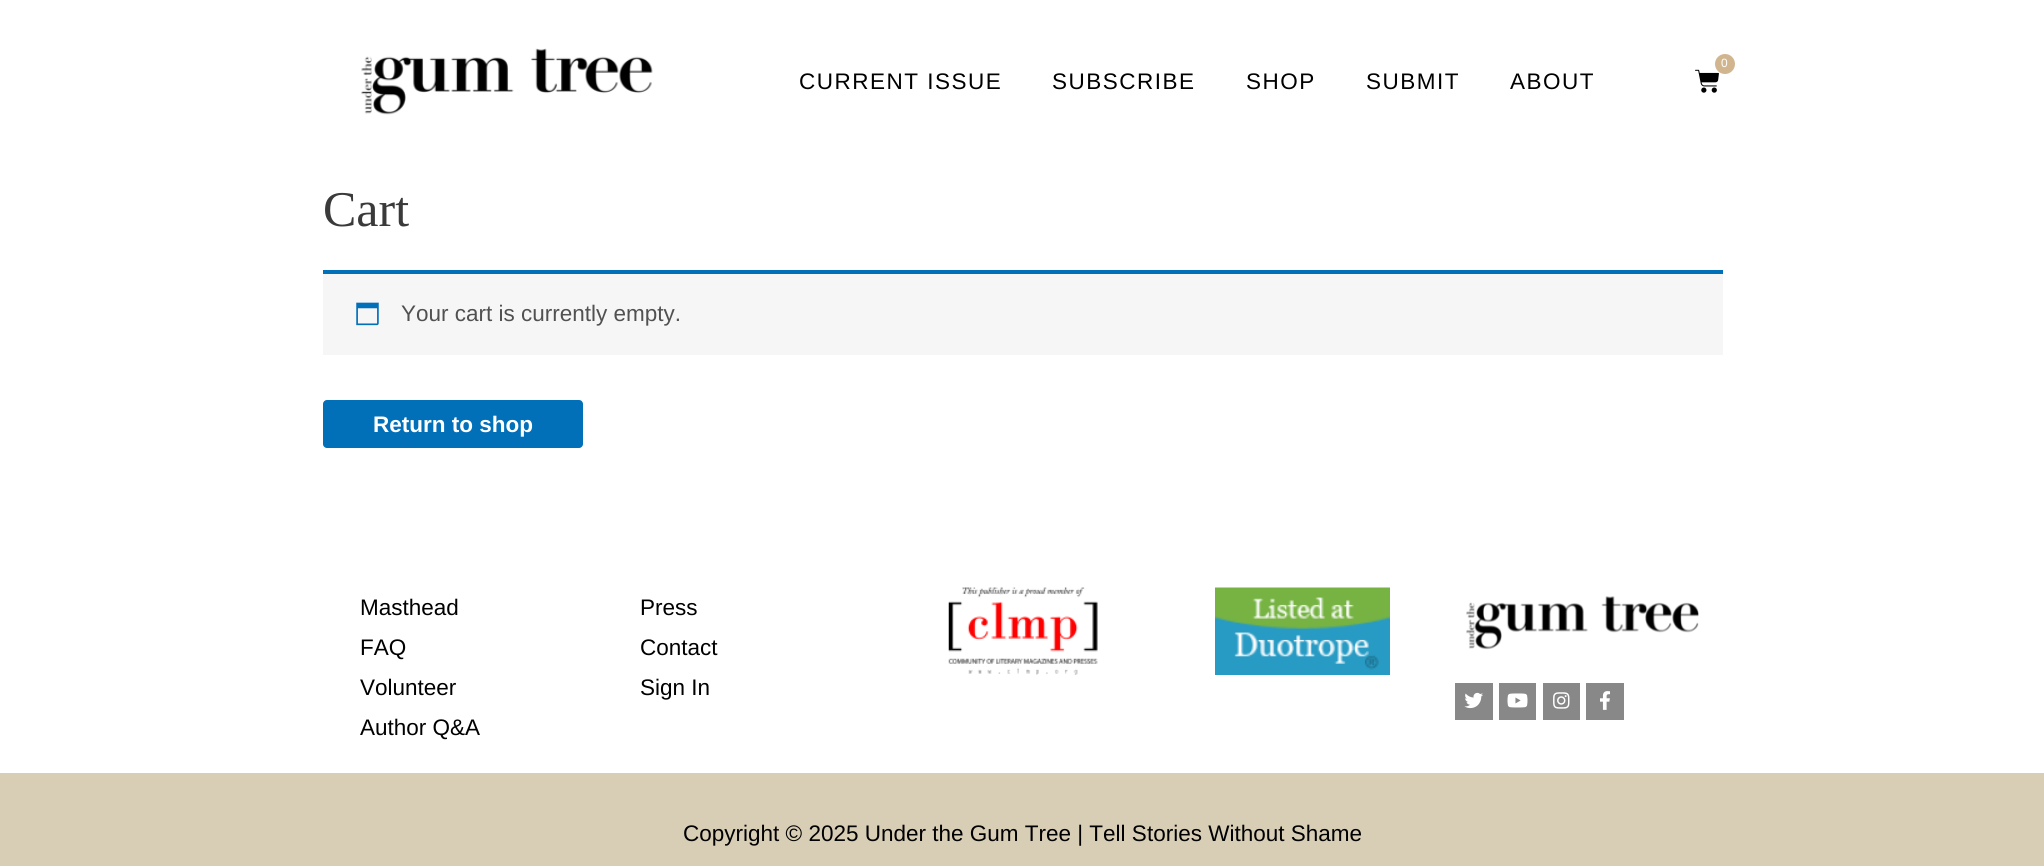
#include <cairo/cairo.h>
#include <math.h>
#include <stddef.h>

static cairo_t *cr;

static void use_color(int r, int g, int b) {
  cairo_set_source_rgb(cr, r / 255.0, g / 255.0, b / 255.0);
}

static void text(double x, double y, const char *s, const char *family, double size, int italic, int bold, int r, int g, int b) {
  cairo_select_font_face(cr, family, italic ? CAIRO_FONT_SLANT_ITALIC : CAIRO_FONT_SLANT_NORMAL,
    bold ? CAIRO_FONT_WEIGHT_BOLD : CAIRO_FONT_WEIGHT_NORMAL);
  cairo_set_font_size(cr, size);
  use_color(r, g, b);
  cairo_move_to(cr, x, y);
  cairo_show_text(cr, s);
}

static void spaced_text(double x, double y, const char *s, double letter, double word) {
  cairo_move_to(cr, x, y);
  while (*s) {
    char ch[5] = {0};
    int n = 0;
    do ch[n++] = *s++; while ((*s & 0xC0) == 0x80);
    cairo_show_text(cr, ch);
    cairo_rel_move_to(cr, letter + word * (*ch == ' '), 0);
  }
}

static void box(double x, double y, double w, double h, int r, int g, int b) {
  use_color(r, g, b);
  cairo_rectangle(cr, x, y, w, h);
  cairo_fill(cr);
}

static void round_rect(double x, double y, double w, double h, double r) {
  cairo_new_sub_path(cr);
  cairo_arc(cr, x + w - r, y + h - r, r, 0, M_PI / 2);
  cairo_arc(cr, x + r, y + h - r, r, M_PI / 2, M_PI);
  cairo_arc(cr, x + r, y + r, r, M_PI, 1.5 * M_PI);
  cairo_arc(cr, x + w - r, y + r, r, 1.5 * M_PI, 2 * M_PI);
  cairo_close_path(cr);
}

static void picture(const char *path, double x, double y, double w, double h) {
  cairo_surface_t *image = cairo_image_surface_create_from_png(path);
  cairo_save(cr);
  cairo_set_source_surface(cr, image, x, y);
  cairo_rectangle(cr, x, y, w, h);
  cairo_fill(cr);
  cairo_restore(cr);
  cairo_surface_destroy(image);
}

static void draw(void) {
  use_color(255, 255, 255);
  cairo_paint(cr);
  picture("img_01.png", 361, 48, 292, 67);
  picture("img_02.png", 1695, 69, 24, 24);
  use_color(208, 181, 142);
  cairo_arc(cr, 1725, 64, 10, 0, 2 * M_PI);
  cairo_fill(cr);
  box(323, 274, 1400, 81, 247, 246, 247);
  box(323, 270, 1400, 4, 1, 112, 185);
  picture("img_03.png", 356, 302, 23, 24);
  round_rect(323, 400, 260, 48, 4);
  cairo_fill(cr);
  picture("img_04.png", 948, 587, 150, 88);
  picture("img_05.png", 1215, 587, 175, 88);
  picture("img_06.png", 1466, 596, 233, 54);
  box(1455, 683, 38, 37, 136, 136, 136);
  picture("img_07.png", 1464, 692, 19, 17);
  box(1499, 683, 37, 37, 136, 136, 136);
  picture("img_08.png", 1507, 693, 21, 15);
  box(1543, 683, 37, 37, 136, 136, 136);
  picture("img_09.png", 1553, 692, 17, 17);
  box(1586, 683, 38, 37, 136, 136, 136);
  picture("img_10.png", 1600, 691, 10, 19);
  box(0, 773, 2044, 93, 216, 205, 181);
  text(1721, 67, "0", "Liberation Sans", 12, 0, 0, 255, 255, 255);
  cairo_set_font_size(cr, 22.5);
  use_color(0, 0, 0);
  spaced_text(799, 89, "CURRENT ISSUE", 1.5, 0);
  spaced_text(1052, 89, "SUBSCRIBE", 1.5, 0);
  spaced_text(1246, 89, "SHOP", 1.5, 0);
  spaced_text(1366, 89, "SUBMIT", 1.5, 0);
  spaced_text(1510, 89, "ABOUT", 1.5, 0);
  text(323, 226, "Cart", "Liberation Serif", 50, 0, 0, 58, 58, 58);
  text(401, 321, "Your cart is currently empty.", "Liberation Sans", 22.5, 0, 0, 81, 81, 81);
  text(373, 432, "Return to shop", "Liberation Sans", 22.5, 0, 1, 255, 255, 255);
  text(360, 615, "Masthead", "Liberation Sans", 22.5, 0, 0, 0, 0, 0);
  text(360, 655, "FAQ", "Liberation Sans", 22.5, 0, 0, 0, 0, 0);
  text(360, 695, "Volunteer", "Liberation Sans", 22.5, 0, 0, 0, 0, 0);
  text(360, 735, "Author Q&A", "Liberation Sans", 22.5, 0, 0, 0, 0, 0);
  text(640, 615, "Press", "Liberation Sans", 22.5, 0, 0, 0, 0, 0);
  text(640, 655, "Contact", "Liberation Sans", 22.5, 0, 0, 0, 0, 0);
  text(640, 695, "Sign In", "Liberation Sans", 22.5, 0, 0, 0, 0, 0);
  text(683, 841, "Copyright © 2025 Under the Gum Tree | Tell Stories Without Shame", "Liberation Sans", 22.5, 0, 0, 0, 0, 0);
}

int main(void) {
  cairo_surface_t *surface = cairo_image_surface_create(CAIRO_FORMAT_RGB24, 2044, 866);
  cr = cairo_create(surface);
  cairo_font_options_t *options = cairo_font_options_create();
  cairo_font_options_set_hint_metrics(options, CAIRO_HINT_METRICS_OFF);
  cairo_font_options_set_hint_style(options, CAIRO_HINT_STYLE_NONE);
  cairo_set_font_options(cr, options);
  cairo_set_miter_limit(cr, 4);
  draw();
  cairo_surface_write_to_png(surface, "out.png");
  cairo_font_options_destroy(options);
  cairo_destroy(cr);
  cairo_surface_destroy(surface);
  return 0;
}
